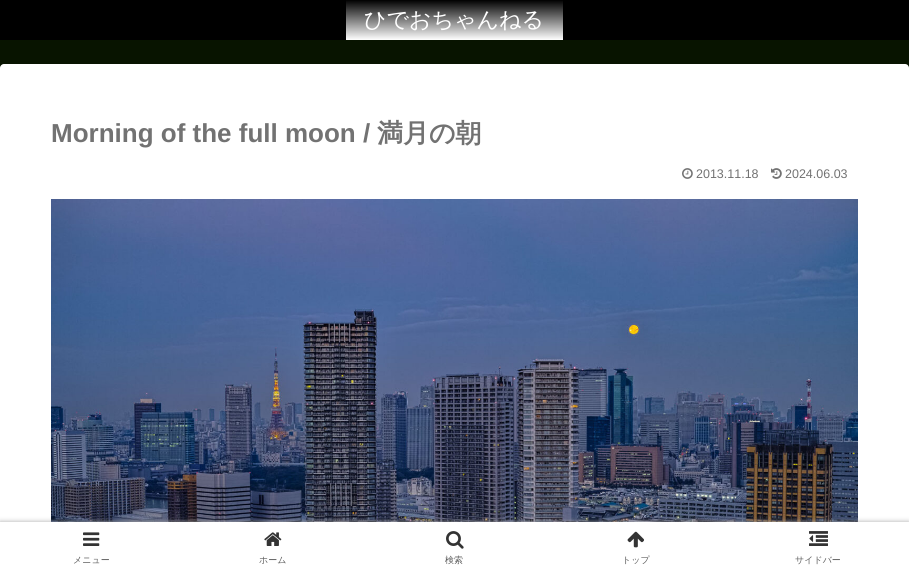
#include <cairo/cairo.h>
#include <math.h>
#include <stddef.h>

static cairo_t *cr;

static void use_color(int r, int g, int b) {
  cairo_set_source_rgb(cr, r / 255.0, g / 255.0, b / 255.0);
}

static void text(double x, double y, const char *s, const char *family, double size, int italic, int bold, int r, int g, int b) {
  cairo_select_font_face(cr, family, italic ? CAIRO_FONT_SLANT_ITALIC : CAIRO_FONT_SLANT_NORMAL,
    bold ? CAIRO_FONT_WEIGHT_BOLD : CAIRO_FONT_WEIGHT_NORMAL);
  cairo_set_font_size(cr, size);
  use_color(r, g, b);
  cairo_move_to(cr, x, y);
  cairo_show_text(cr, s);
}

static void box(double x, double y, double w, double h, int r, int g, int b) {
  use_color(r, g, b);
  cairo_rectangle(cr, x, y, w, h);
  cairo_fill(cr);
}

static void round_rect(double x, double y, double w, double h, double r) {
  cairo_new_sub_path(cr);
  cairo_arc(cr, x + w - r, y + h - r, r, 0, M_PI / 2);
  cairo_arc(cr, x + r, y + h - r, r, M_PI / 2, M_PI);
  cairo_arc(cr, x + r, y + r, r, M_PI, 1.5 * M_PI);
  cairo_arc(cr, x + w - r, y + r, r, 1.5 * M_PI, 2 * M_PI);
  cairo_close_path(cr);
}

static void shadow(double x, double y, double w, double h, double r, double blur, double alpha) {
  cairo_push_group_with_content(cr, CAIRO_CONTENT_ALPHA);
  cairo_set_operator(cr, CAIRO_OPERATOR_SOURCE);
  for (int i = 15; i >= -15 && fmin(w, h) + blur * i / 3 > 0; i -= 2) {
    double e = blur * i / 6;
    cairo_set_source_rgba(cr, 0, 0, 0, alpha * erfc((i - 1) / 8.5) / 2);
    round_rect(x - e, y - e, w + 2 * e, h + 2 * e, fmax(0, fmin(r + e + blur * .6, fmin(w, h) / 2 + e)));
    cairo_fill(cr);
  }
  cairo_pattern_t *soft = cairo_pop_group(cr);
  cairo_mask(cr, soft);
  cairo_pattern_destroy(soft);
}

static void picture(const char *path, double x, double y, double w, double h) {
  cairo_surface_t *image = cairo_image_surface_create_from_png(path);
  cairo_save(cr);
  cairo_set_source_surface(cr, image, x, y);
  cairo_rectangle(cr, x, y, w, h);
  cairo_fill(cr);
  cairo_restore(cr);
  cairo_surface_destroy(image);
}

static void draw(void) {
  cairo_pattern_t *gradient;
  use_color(8, 20, 0);
  cairo_paint(cr);
  box(0, 0, 909, 40, 0, 0, 0);
  gradient = cairo_pattern_create_linear(455, 0, 455, 40);
  cairo_pattern_add_color_stop_rgba(gradient, 0, 0, 0, 0, 1);
  cairo_pattern_add_color_stop_rgba(gradient, 1, 1, 1, 1, 1);
  cairo_set_source(cr, gradient);
  cairo_pattern_destroy(gradient);
  cairo_rectangle(cr, 346, 0, 217, 40);
  cairo_fill(cr);
  use_color(255, 255, 255);
  round_rect(0, 64, 909, 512, 4);
  cairo_fill(cr);
  picture("img_01.png", 682, 168, 11, 11);
  picture("img_02.png", 771, 168, 11, 11);
  picture("img_03.png", 51, 199, 807, 323);
  use_color(169, 169, 169);
  shadow(0, 522, 909, 50, 0, 2.5, 1);
  box(0, 522, 909, 50, 255, 255, 255);
  picture("img_04.png", 83, 532, 17, 14);
  picture("img_05.png", 264, 532, 18, 14);
  picture("img_06.png", 446, 531, 18, 18);
  picture("img_07.png", 627, 531, 17, 17);
  picture("img_08.png", 809, 531, 19, 15);
  text(364, 27, "ひでおちゃんねる", "WenQuanYi Zen Hei Medium", 22, 0, 0, 255, 255, 255);
  text(51, 142, "Morning of the full moon /", "Liberation Sans", 26, 0, 1, 114, 114, 114);
  text(377, 142, "満月の朝", "WenQuanYi Zen Hei", 26, 0, 1, 114, 114, 114);
  text(696, 178, "2013.11.18", "Liberation Sans", 12.5, 0, 0, 114, 114, 114);
  text(785, 178, "2024.06.03", "Liberation Sans", 12.5, 0, 0, 114, 114, 114);
  text(73, 563, "メニュー", "WenQuanYi Zen Hei Medium", 9, 0, 0, 92, 92, 92);
  text(259, 563, "ホーム", "WenQuanYi Zen Hei Medium", 9, 0, 0, 92, 92, 92);
  text(445, 563, "検索", "WenQuanYi Zen Hei Medium", 9, 0, 0, 92, 92, 92);
  text(622, 563, "トップ", "WenQuanYi Zen Hei Medium", 9, 0, 0, 92, 92, 92);
  text(795, 563, "サイドバー", "WenQuanYi Zen Hei Medium", 9, 0, 0, 92, 92, 92);
}

int main(void) {
  cairo_surface_t *surface = cairo_image_surface_create(CAIRO_FORMAT_RGB24, 909, 572);
  cr = cairo_create(surface);
  cairo_font_options_t *options = cairo_font_options_create();
  cairo_font_options_set_hint_metrics(options, CAIRO_HINT_METRICS_OFF);
  cairo_font_options_set_hint_style(options, CAIRO_HINT_STYLE_NONE);
  cairo_set_font_options(cr, options);
  cairo_set_miter_limit(cr, 4);
  draw();
  cairo_surface_write_to_png(surface, "out.png");
  cairo_font_options_destroy(options);
  cairo_destroy(cr);
  cairo_surface_destroy(surface);
  return 0;
}
